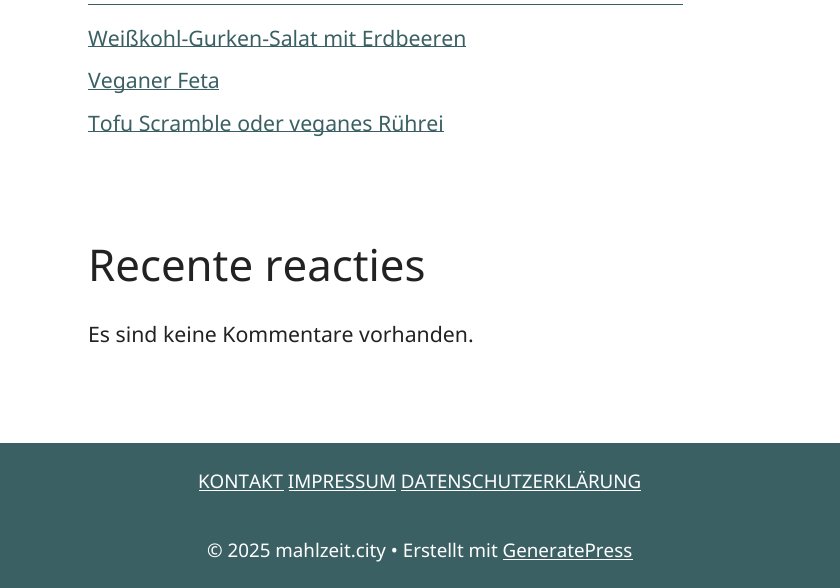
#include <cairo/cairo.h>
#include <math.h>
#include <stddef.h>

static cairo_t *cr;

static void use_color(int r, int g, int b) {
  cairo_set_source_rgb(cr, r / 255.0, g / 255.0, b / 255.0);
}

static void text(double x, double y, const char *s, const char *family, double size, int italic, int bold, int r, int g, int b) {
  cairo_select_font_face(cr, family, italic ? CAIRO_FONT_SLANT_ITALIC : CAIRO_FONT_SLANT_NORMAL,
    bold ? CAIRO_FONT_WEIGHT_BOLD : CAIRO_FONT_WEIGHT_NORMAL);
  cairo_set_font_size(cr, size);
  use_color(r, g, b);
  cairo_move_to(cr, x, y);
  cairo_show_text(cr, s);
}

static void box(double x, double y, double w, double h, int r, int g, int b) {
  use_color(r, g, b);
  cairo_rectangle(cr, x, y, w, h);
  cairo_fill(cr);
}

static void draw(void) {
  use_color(59, 96, 100);
  cairo_paint(cr);
  box(0, 0, 840, 443, 255, 255, 255);
  box(88, 4, 595, 1, 59, 96, 100);
  box(88, 46, 378, 1, 59, 96, 100);
  box(88, 89, 131, 1, 59, 96, 100);
  box(88, 131, 356, 1, 59, 96, 100);
  box(199, 490, 85, 1, 255, 255, 255);
  box(289, 490, 107, 1, 255, 255, 255);
  box(401, 490, 240, 1, 255, 255, 255);
  box(503, 559, 130, 1, 255, 255, 255);
  text(88, 46, "Weißkohl-Gurken-Salat mit Erdbeeren", "Noto Sans", 21.25, 0, 0, 59, 96, 100);
  text(88, 88, "Veganer Feta", "Noto Sans", 21.25, 0, 0, 59, 96, 100);
  text(88, 131, "Tofu Scramble oder veganes Rührei", "Noto Sans", 21.25, 0, 0, 59, 96, 100);
  text(88, 281, "Recente reacties", "Noto Sans", 43.75, 0, 0, 34, 34, 34);
  text(88, 342, "Es sind keine Kommentare vorhanden.", "Noto Sans", 21.25, 0, 0, 34, 34, 34);
  text(198, 488, "KONTAKT IMPRESSUM DATENSCHUTZERKLÄRUNG", "Noto Sans", 18.75, 0, 0, 255, 255, 255);
  text(207, 557, "© 2025 mahlzeit.city • Erstellt mit GeneratePress", "Noto Sans", 18.75, 0, 0, 255, 255, 255);
}

int main(void) {
  cairo_surface_t *surface = cairo_image_surface_create(CAIRO_FORMAT_RGB24, 840, 588);
  cr = cairo_create(surface);
  cairo_font_options_t *options = cairo_font_options_create();
  cairo_font_options_set_hint_metrics(options, CAIRO_HINT_METRICS_OFF);
  cairo_font_options_set_hint_style(options, CAIRO_HINT_STYLE_NONE);
  cairo_set_font_options(cr, options);
  cairo_set_miter_limit(cr, 4);
  draw();
  cairo_surface_write_to_png(surface, "out.png");
  cairo_font_options_destroy(options);
  cairo_destroy(cr);
  cairo_surface_destroy(surface);
  return 0;
}
